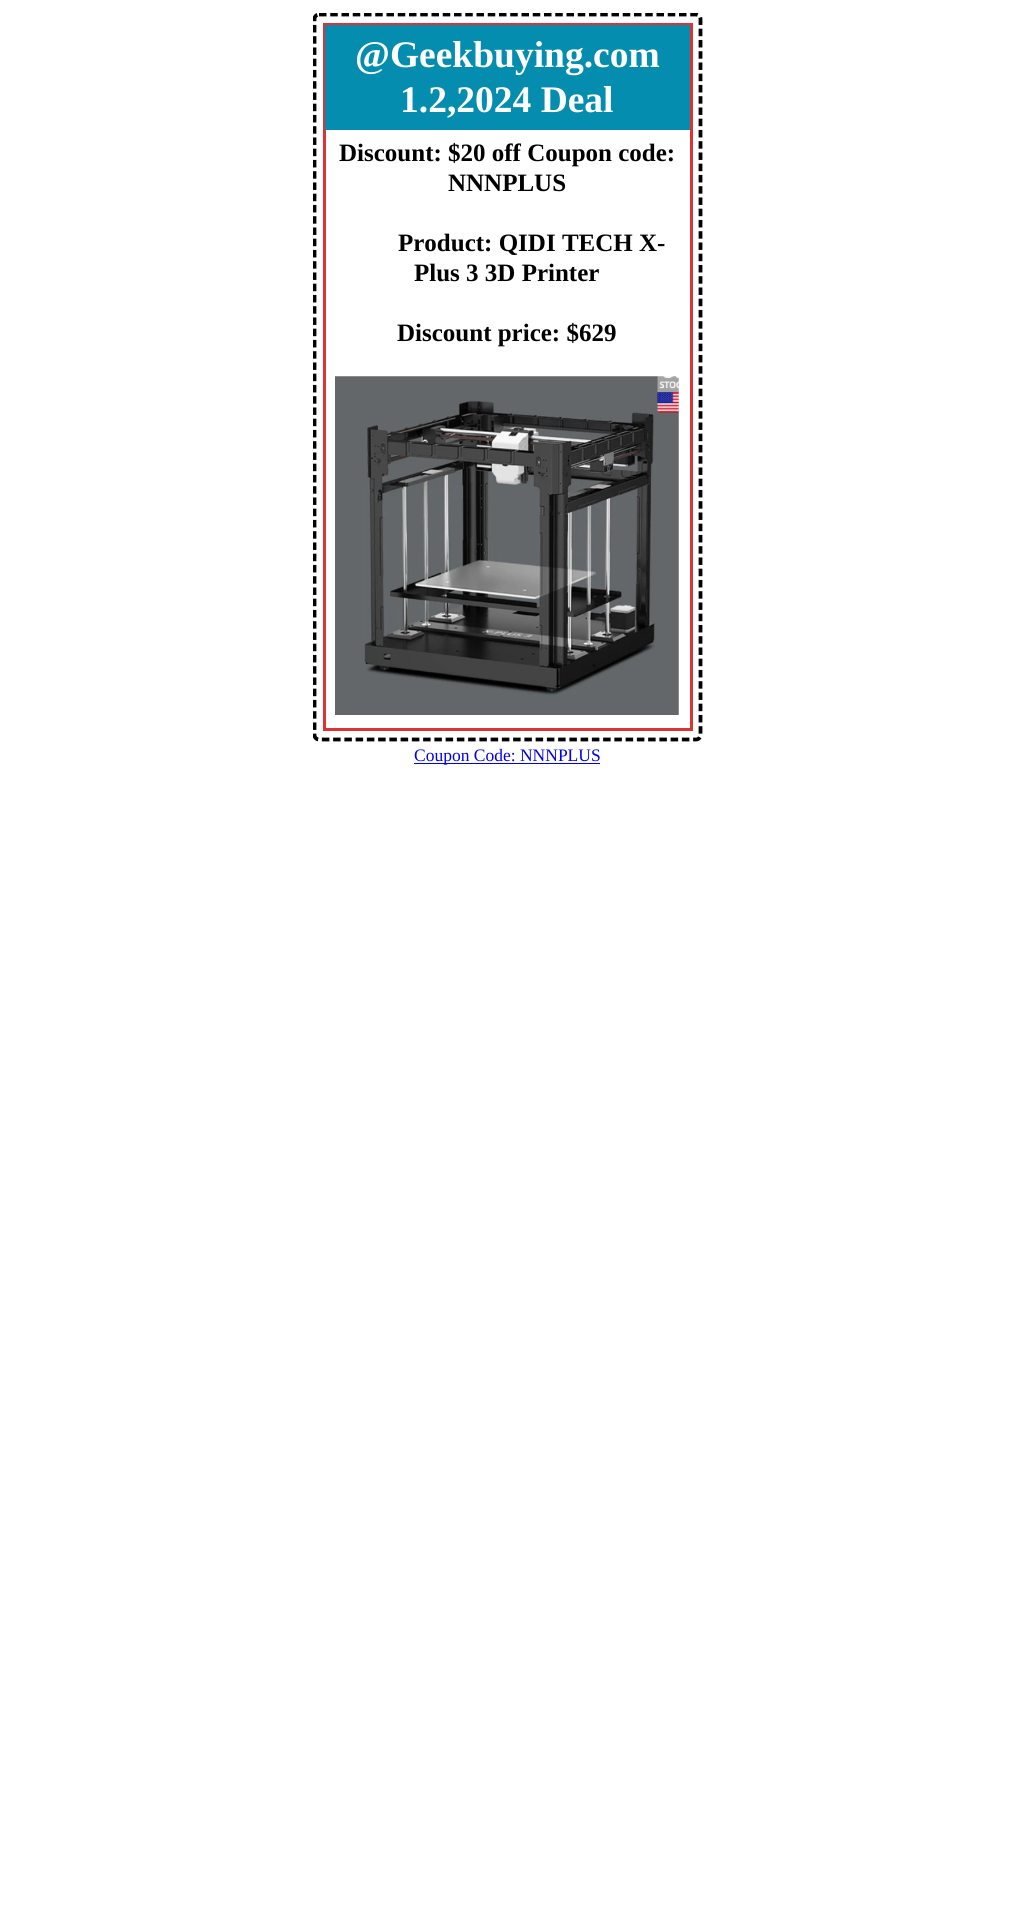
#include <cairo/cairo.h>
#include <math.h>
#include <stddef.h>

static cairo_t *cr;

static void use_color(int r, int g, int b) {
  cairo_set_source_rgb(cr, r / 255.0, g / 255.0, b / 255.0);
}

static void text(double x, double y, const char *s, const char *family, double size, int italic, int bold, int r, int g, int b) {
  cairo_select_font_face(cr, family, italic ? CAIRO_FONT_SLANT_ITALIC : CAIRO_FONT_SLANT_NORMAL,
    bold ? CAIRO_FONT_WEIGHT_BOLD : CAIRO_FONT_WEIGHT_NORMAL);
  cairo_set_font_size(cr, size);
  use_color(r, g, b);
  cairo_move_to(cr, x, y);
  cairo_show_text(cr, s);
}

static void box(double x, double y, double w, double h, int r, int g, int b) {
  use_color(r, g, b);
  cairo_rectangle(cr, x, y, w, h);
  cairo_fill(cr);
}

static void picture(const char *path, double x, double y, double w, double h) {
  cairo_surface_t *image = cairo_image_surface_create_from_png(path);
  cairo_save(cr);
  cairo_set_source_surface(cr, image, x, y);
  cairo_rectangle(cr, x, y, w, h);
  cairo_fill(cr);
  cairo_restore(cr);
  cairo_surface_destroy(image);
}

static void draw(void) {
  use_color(255, 255, 255);
  cairo_paint(cr);
  cairo_save(cr);
  cairo_rectangle(cr, 313, 13, 390, 756);
  cairo_clip(cr);
  cairo_new_path(cr);
  cairo_move_to(cr, 319, 14.5);
  cairo_line_to(cr, 696, 14.5);
  cairo_curve_to(cr, 698.5, 14.5, 700.5, 16.5, 700.5, 19);
  cairo_line_to(cr, 700.5, 735);
  cairo_curve_to(cr, 700.5, 737.5, 698.5, 739.5, 696, 739.5);
  cairo_line_to(cr, 319, 739.5);
  cairo_curve_to(cr, 316.5, 739.5, 314.5, 737.5, 314.5, 735);
  cairo_line_to(cr, 314.5, 19);
  cairo_curve_to(cr, 314.5, 16.5, 316.5, 14.5, 319, 14.5);
  cairo_close_path(cr);
  use_color(0, 0, 0);
  cairo_set_line_width(cr, 3.8);
  cairo_set_dash(cr, (double[]){7.5, 3.75}, 2, 0);
  cairo_stroke(cr);
  cairo_restore(cr);
  cairo_rectangle(cr, 324.5, 24.5, 367, 705);
  use_color(221, 51, 51);
  cairo_set_line_width(cr, 3);
  cairo_stroke(cr);
  box(325, 25, 365, 105, 5, 141, 175);
  picture("img_01.png", 335, 376, 344, 339);
  box(414, 763, 186, 1, 0, 0, 238);
  text(355, 67, "@Geekbuying.com", "Liberation Serif", 37.5, 0, 1, 255, 255, 255);
  text(400, 112, "1.2,2024 Deal", "Liberation Serif", 37.5, 0, 1, 255, 255, 255);
  text(339, 161, "Discount: $20 off Coupon code:", "Liberation Serif", 25, 0, 1, 0, 0, 0);
  text(448, 191, "NNNPLUS", "Liberation Serif", 25, 0, 1, 0, 0, 0);
  text(398, 251, "Product: QIDI TECH X-", "Liberation Serif", 25, 0, 1, 0, 0, 0);
  text(414, 281, "Plus 3 3D Printer", "Liberation Serif", 25, 0, 1, 0, 0, 0);
  text(397, 341, "Discount price: $629", "Liberation Serif", 25, 0, 1, 0, 0, 0);
  text(414, 761, "Coupon Code: NNNPLUS", "Liberation Serif", 17.5, 0, 0, 0, 0, 238);
}

int main(void) {
  cairo_surface_t *surface = cairo_image_surface_create(CAIRO_FORMAT_RGB24, 1013, 1905);
  cr = cairo_create(surface);
  cairo_font_options_t *options = cairo_font_options_create();
  cairo_font_options_set_hint_metrics(options, CAIRO_HINT_METRICS_OFF);
  cairo_font_options_set_hint_style(options, CAIRO_HINT_STYLE_NONE);
  cairo_set_font_options(cr, options);
  cairo_set_miter_limit(cr, 4);
  draw();
  cairo_surface_write_to_png(surface, "out.png");
  cairo_font_options_destroy(options);
  cairo_destroy(cr);
  cairo_surface_destroy(surface);
  return 0;
}
